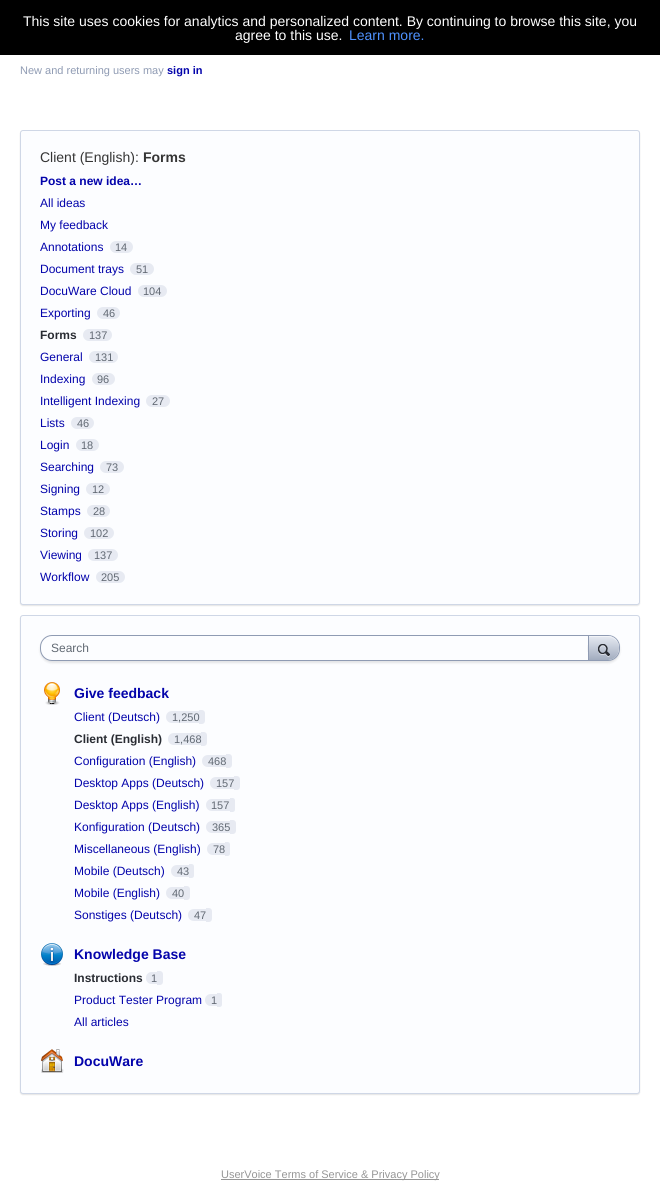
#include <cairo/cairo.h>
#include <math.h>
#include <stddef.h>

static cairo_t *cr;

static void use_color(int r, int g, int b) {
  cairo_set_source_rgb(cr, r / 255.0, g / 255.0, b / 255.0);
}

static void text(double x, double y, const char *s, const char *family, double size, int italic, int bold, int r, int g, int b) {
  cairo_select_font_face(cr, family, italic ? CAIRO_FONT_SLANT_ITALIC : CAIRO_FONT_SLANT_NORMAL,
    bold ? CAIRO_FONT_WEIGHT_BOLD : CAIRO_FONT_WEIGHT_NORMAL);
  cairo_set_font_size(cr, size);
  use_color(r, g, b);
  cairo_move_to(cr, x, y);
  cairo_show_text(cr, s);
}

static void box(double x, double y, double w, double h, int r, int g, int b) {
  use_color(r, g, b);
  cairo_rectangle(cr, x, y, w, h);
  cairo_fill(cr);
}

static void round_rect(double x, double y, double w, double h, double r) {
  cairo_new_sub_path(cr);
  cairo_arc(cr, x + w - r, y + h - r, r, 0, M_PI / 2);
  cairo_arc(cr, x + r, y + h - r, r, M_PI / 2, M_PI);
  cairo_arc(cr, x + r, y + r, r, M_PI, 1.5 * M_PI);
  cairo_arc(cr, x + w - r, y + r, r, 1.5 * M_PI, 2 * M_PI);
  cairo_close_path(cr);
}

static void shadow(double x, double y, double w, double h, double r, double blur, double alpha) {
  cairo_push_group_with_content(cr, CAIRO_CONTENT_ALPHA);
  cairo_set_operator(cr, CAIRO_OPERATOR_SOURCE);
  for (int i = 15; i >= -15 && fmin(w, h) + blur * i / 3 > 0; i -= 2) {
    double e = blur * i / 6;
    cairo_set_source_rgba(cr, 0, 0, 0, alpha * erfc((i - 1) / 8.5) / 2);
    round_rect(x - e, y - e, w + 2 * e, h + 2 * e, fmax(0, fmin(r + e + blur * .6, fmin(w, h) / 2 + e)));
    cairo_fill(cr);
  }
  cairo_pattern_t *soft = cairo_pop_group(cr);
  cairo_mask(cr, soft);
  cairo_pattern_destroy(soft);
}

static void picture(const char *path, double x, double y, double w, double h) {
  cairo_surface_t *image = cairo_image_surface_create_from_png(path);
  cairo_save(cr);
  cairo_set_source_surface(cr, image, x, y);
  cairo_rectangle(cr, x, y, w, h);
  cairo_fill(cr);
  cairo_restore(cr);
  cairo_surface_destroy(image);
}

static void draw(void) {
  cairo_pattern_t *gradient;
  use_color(255, 255, 255);
  cairo_paint(cr);
  box(0, 0, 660, 55, 0, 0, 0);
  use_color(0, 0, 0);
  shadow(20, 131, 620, 475, 3, 0.5, 0.1);
  use_color(252, 253, 255);
  round_rect(20.5, 130.5, 619, 474, 2.5);
  cairo_fill_preserve(cr);
  use_color(207, 215, 230);
  cairo_set_line_width(cr, 1);
  cairo_stroke(cr);
  use_color(231, 234, 242);
  round_rect(110, 241, 23, 12, 6);
  cairo_fill(cr);
  round_rect(130, 263, 24, 12, 6);
  cairo_fill(cr);
  round_rect(138, 285, 29, 12, 6);
  cairo_fill(cr);
  round_rect(97, 307, 23, 12, 6);
  cairo_fill(cr);
  round_rect(83, 329, 29, 12, 6);
  cairo_fill(cr);
  round_rect(89, 351, 29, 12, 6);
  cairo_fill(cr);
  round_rect(92, 373, 23, 12, 6);
  cairo_fill(cr);
  round_rect(146, 395, 24, 12, 6);
  cairo_fill(cr);
  round_rect(71, 417, 23, 12, 6);
  cairo_fill(cr);
  round_rect(76, 439, 23, 12, 6);
  cairo_fill(cr);
  round_rect(100, 461, 24, 12, 6);
  cairo_fill(cr);
  round_rect(86, 483, 24, 12, 6);
  cairo_fill(cr);
  round_rect(87, 505, 23, 12, 6);
  cairo_fill(cr);
  round_rect(84, 527, 30, 12, 6);
  cairo_fill(cr);
  round_rect(88, 549, 30, 12, 6);
  cairo_fill(cr);
  round_rect(96, 571, 29, 12, 6);
  cairo_fill(cr);
  use_color(0, 0, 0);
  shadow(20, 616, 620, 479, 3, 0.5, 0.1);
  use_color(252, 253, 255);
  round_rect(20.5, 615.5, 619, 478, 2.5);
  cairo_fill_preserve(cr);
  use_color(207, 215, 230);
  cairo_stroke(cr);
  use_color(0, 0, 0);
  shadow(40, 637, 580, 26, 12, 1, 0.1);
  use_color(252, 253, 255);
  round_rect(40.5, 635.5, 579, 25, 11.5);
  cairo_fill_preserve(cr);
  use_color(143, 155, 179);
  cairo_stroke(cr);
  cairo_save(cr);
  cairo_rectangle(cr, 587, 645, 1, 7);
  cairo_clip(cr);
  use_color(0, 0, 0);
  shadow(588, 636, 32, 25, 12, 1, 0.1);
  cairo_restore(cr);
  gradient = cairo_pattern_create_linear(589, 636, 589, 660);
  cairo_pattern_add_color_stop_rgba(gradient, 0, 0.902, 0.918, 0.949, 1);
  cairo_pattern_add_color_stop_rgba(gradient, 1, 0.635, 0.675, 0.749, 1);
  cairo_set_source(cr, gradient);
  cairo_pattern_destroy(gradient);
  cairo_new_path(cr);
  cairo_move_to(cr, 589, 636);
  cairo_line_to(cr, 608, 636);
  cairo_curve_to(cr, 614, 636, 619, 641, 619, 647);
  cairo_line_to(cr, 619, 648);
  cairo_curve_to(cr, 619, 654.5, 614, 660, 608, 660);
  cairo_line_to(cr, 589, 660);
  cairo_close_path(cr);
  cairo_fill(cr);
  cairo_set_source_rgba(cr, 1, 1, 1, 0.5);
  cairo_new_path(cr);
  cairo_move_to(cr, 589, 636);
  cairo_line_to(cr, 589, 637);
  cairo_line_to(cr, 608, 637);
  cairo_curve_to(cr, 614, 637, 619, 642, 619, 648);
  cairo_curve_to(cr, 619, 641.5, 615, 636, 608, 636);
  cairo_close_path(cr);
  cairo_fill(cr);
  use_color(163, 177, 204);
  cairo_new_path(cr);
  cairo_move_to(cr, 608, 636);
  cairo_curve_to(cr, 611, 636, 614, 637, 616, 639);
  cairo_curve_to(cr, 614, 637.5, 611, 636, 608, 636);
  cairo_close_path(cr);
  cairo_fill(cr);
  use_color(143, 155, 179);
  cairo_set_fill_rule(cr, CAIRO_FILL_RULE_EVEN_ODD);
  cairo_new_path(cr);
  cairo_move_to(cr, 619, 648);
  cairo_curve_to(cr, 619, 654.5, 615, 660, 608, 660);
  cairo_curve_to(cr, 614, 660, 619, 654.5, 619, 648);
  cairo_close_path(cr);
  cairo_move_to(cr, 616, 639);
  cairo_curve_to(cr, 617.5, 641, 619, 644, 619, 647);
  cairo_curve_to(cr, 619, 644, 618, 641, 616, 639);
  cairo_close_path(cr);
  cairo_fill(cr);
  box(588, 636, 1, 24, 143, 155, 179);
  picture("img_01.png", 598, 644, 12, 13);
  picture("img_02.png", 44, 682, 16, 23);
  use_color(231, 234, 242);
  cairo_new_path(cr);
  cairo_move_to(cr, 172, 711);
  cairo_line_to(cr, 199, 711);
  cairo_line_to(cr, 199, 723);
  cairo_line_to(cr, 172, 723);
  cairo_curve_to(cr, 168.5, 723, 166, 720.5, 166, 717);
  cairo_curve_to(cr, 166, 713.5, 168.5, 711, 172, 711);
  cairo_close_path(cr);
  cairo_fill(cr);
  cairo_new_path(cr);
  cairo_move_to(cr, 199, 710);
  cairo_line_to(cr, 202, 710);
  cairo_curve_to(cr, 203.5, 710, 205, 711.5, 205, 713);
  cairo_line_to(cr, 205, 721);
  cairo_curve_to(cr, 205, 722.5, 203.5, 724, 202, 724);
  cairo_line_to(cr, 199, 724);
  cairo_close_path(cr);
  cairo_fill(cr);
  cairo_new_path(cr);
  cairo_move_to(cr, 174, 733);
  cairo_line_to(cr, 201, 733);
  cairo_line_to(cr, 201, 745);
  cairo_line_to(cr, 174, 745);
  cairo_curve_to(cr, 170.5, 745, 168, 742.5, 168, 739);
  cairo_curve_to(cr, 168, 735.5, 170.5, 733, 174, 733);
  cairo_close_path(cr);
  cairo_fill(cr);
  cairo_new_path(cr);
  cairo_move_to(cr, 201, 732);
  cairo_line_to(cr, 204, 732);
  cairo_curve_to(cr, 205.5, 732, 207, 733.5, 207, 735);
  cairo_line_to(cr, 207, 743);
  cairo_curve_to(cr, 207, 744.5, 205.5, 746, 204, 746);
  cairo_line_to(cr, 201, 746);
  cairo_close_path(cr);
  cairo_fill(cr);
  cairo_new_path(cr);
  cairo_move_to(cr, 208, 755);
  cairo_line_to(cr, 226, 755);
  cairo_line_to(cr, 226, 767);
  cairo_line_to(cr, 208, 767);
  cairo_curve_to(cr, 204.5, 767, 202, 764.5, 202, 761);
  cairo_curve_to(cr, 202, 757.5, 204.5, 755, 208, 755);
  cairo_close_path(cr);
  cairo_fill(cr);
  cairo_new_path(cr);
  cairo_move_to(cr, 226, 754);
  cairo_line_to(cr, 229, 754);
  cairo_curve_to(cr, 230.5, 754, 232, 755.5, 232, 757);
  cairo_line_to(cr, 232, 765);
  cairo_curve_to(cr, 232, 766.5, 230.5, 768, 229, 768);
  cairo_line_to(cr, 226, 768);
  cairo_close_path(cr);
  cairo_fill(cr);
  cairo_new_path(cr);
  cairo_move_to(cr, 216, 777);
  cairo_line_to(cr, 234, 777);
  cairo_line_to(cr, 234, 789);
  cairo_line_to(cr, 216, 789);
  cairo_curve_to(cr, 212.5, 789, 210, 786.5, 210, 783);
  cairo_curve_to(cr, 210, 779.5, 212.5, 777, 216, 777);
  cairo_close_path(cr);
  cairo_fill(cr);
  cairo_new_path(cr);
  cairo_move_to(cr, 234, 776);
  cairo_line_to(cr, 237, 776);
  cairo_curve_to(cr, 238.5, 776, 240, 777.5, 240, 779);
  cairo_line_to(cr, 240, 787);
  cairo_curve_to(cr, 240, 788.5, 238.5, 790, 237, 790);
  cairo_line_to(cr, 234, 790);
  cairo_close_path(cr);
  cairo_fill(cr);
  cairo_new_path(cr);
  cairo_move_to(cr, 212, 799);
  cairo_line_to(cr, 230, 799);
  cairo_line_to(cr, 230, 811);
  cairo_line_to(cr, 212, 811);
  cairo_curve_to(cr, 208.5, 811, 206, 808.5, 206, 805);
  cairo_curve_to(cr, 206, 801.5, 208.5, 799, 212, 799);
  cairo_close_path(cr);
  cairo_fill(cr);
  cairo_new_path(cr);
  cairo_move_to(cr, 230, 798);
  cairo_line_to(cr, 232.5, 798);
  cairo_curve_to(cr, 234, 798, 235, 799, 235, 800.5);
  cairo_line_to(cr, 235, 809.5);
  cairo_curve_to(cr, 235, 811, 234, 812, 232.5, 812);
  cairo_line_to(cr, 230, 812);
  cairo_close_path(cr);
  cairo_fill(cr);
  cairo_new_path(cr);
  cairo_move_to(cr, 212, 821);
  cairo_line_to(cr, 230, 821);
  cairo_line_to(cr, 230, 833);
  cairo_line_to(cr, 212, 833);
  cairo_curve_to(cr, 208.5, 833, 206, 830.5, 206, 827);
  cairo_curve_to(cr, 206, 823.5, 208.5, 821, 212, 821);
  cairo_close_path(cr);
  cairo_fill(cr);
  cairo_new_path(cr);
  cairo_move_to(cr, 230, 820);
  cairo_line_to(cr, 233, 820);
  cairo_curve_to(cr, 234.5, 820, 236, 821.5, 236, 823);
  cairo_line_to(cr, 236, 831);
  cairo_curve_to(cr, 236, 832.5, 234.5, 834, 233, 834);
  cairo_line_to(cr, 230, 834);
  cairo_close_path(cr);
  cairo_fill(cr);
  cairo_new_path(cr);
  cairo_move_to(cr, 213, 843);
  cairo_line_to(cr, 225, 843);
  cairo_line_to(cr, 225, 855);
  cairo_line_to(cr, 213, 855);
  cairo_curve_to(cr, 209.5, 855, 207, 852.5, 207, 849);
  cairo_curve_to(cr, 207, 845.5, 209.5, 843, 213, 843);
  cairo_close_path(cr);
  cairo_fill(cr);
  cairo_new_path(cr);
  cairo_move_to(cr, 225, 842);
  cairo_line_to(cr, 227.5, 842);
  cairo_curve_to(cr, 229, 842, 230, 843, 230, 844.5);
  cairo_line_to(cr, 230, 853.5);
  cairo_curve_to(cr, 230, 855, 229, 856, 227.5, 856);
  cairo_line_to(cr, 225, 856);
  cairo_close_path(cr);
  cairo_fill(cr);
  cairo_new_path(cr);
  cairo_move_to(cr, 177, 865);
  cairo_line_to(cr, 189, 865);
  cairo_line_to(cr, 189, 877);
  cairo_line_to(cr, 177, 877);
  cairo_curve_to(cr, 173.5, 877, 171, 874.5, 171, 871);
  cairo_curve_to(cr, 171, 867.5, 173.5, 865, 177, 865);
  cairo_close_path(cr);
  cairo_fill(cr);
  cairo_new_path(cr);
  cairo_move_to(cr, 189, 864);
  cairo_line_to(cr, 191.5, 864);
  cairo_curve_to(cr, 193, 864, 194, 865, 194, 866.5);
  cairo_line_to(cr, 194, 875.5);
  cairo_curve_to(cr, 194, 877, 193, 878, 191.5, 878);
  cairo_line_to(cr, 189, 878);
  cairo_close_path(cr);
  cairo_fill(cr);
  cairo_new_path(cr);
  cairo_move_to(cr, 172, 887);
  cairo_line_to(cr, 184, 887);
  cairo_line_to(cr, 184, 899);
  cairo_line_to(cr, 172, 899);
  cairo_curve_to(cr, 168.5, 899, 166, 896.5, 166, 893);
  cairo_curve_to(cr, 166, 889.5, 168.5, 887, 172, 887);
  cairo_close_path(cr);
  cairo_fill(cr);
  cairo_new_path(cr);
  cairo_move_to(cr, 184, 886);
  cairo_line_to(cr, 187, 886);
  cairo_curve_to(cr, 188.5, 886, 190, 887.5, 190, 889);
  cairo_line_to(cr, 190, 897);
  cairo_curve_to(cr, 190, 898.5, 188.5, 900, 187, 900);
  cairo_line_to(cr, 184, 900);
  cairo_close_path(cr);
  cairo_fill(cr);
  cairo_new_path(cr);
  cairo_move_to(cr, 194, 909);
  cairo_line_to(cr, 206, 909);
  cairo_line_to(cr, 206, 921);
  cairo_line_to(cr, 194, 921);
  cairo_curve_to(cr, 190.5, 921, 188, 918.5, 188, 915);
  cairo_curve_to(cr, 188, 911.5, 190.5, 909, 194, 909);
  cairo_close_path(cr);
  cairo_fill(cr);
  cairo_new_path(cr);
  cairo_move_to(cr, 206, 908);
  cairo_line_to(cr, 209, 908);
  cairo_curve_to(cr, 210.5, 908, 212, 909.5, 212, 911);
  cairo_line_to(cr, 212, 919);
  cairo_curve_to(cr, 212, 920.5, 210.5, 922, 209, 922);
  cairo_line_to(cr, 206, 922);
  cairo_close_path(cr);
  cairo_fill(cr);
  picture("img_03.png", 41, 943, 22, 23);
  cairo_new_path(cr);
  cairo_move_to(cr, 151.5, 972);
  cairo_line_to(cr, 157, 972);
  cairo_line_to(cr, 157, 984);
  cairo_line_to(cr, 151.5, 984);
  cairo_curve_to(cr, 148.5, 984, 146, 981.5, 146, 978.5);
  cairo_line_to(cr, 146, 977.5);
  cairo_curve_to(cr, 146, 974.5, 148.5, 972, 151.5, 972);
  cairo_close_path(cr);
  cairo_fill(cr);
  cairo_new_path(cr);
  cairo_move_to(cr, 157, 971);
  cairo_line_to(cr, 160, 971);
  cairo_curve_to(cr, 161.5, 971, 163, 972.5, 163, 974);
  cairo_line_to(cr, 163, 982);
  cairo_curve_to(cr, 163, 983.5, 161.5, 985, 160, 985);
  cairo_line_to(cr, 157, 985);
  cairo_close_path(cr);
  cairo_fill(cr);
  cairo_new_path(cr);
  cairo_move_to(cr, 211, 994);
  cairo_line_to(cr, 217, 994);
  cairo_line_to(cr, 217, 1006);
  cairo_line_to(cr, 211, 1006);
  cairo_curve_to(cr, 207.5, 1006, 205, 1003.5, 205, 1000);
  cairo_curve_to(cr, 205, 996.5, 207.5, 994, 211, 994);
  cairo_close_path(cr);
  cairo_fill(cr);
  cairo_new_path(cr);
  cairo_move_to(cr, 217, 993);
  cairo_line_to(cr, 219.5, 993);
  cairo_curve_to(cr, 221, 993, 222, 994, 222, 995.5);
  cairo_line_to(cr, 222, 1004.5);
  cairo_curve_to(cr, 222, 1006, 221, 1007, 219.5, 1007);
  cairo_line_to(cr, 217, 1007);
  cairo_close_path(cr);
  cairo_fill(cr);
  picture("img_04.png", 41, 1049, 23, 24);
  box(221, 1179, 218, 1, 150, 150, 150);
  text(23, 26, "This site uses cookies for analytics and personalized content. By continuing to browse this site, you", "Liberation Sans", 14, 0, 0, 255, 255, 255);
  text(235, 40, "agree to this use.", "Liberation Sans", 14, 0, 0, 255, 255, 255);
  text(349, 40, "Learn more.", "Liberation Sans", 14, 0, 0, 79, 146, 255);
  text(20, 74, "New and returning users may", "Liberation Sans", 11, 0, 0, 143, 155, 179);
  text(167, 74, "sign in", "Liberation Sans", 11, 0, 1, 3, 3, 171);
  text(40, 162, "Client (English):", "Liberation Sans", 14, 0, 0, 53, 53, 53);
  text(143, 162, "Forms", "Liberation Sans", 14, 0, 1, 53, 53, 53);
  text(40, 185, "Post a new idea…", "Liberation Sans", 12, 0, 1, 3, 3, 171);
  text(40, 207, "All ideas", "Liberation Sans", 12, 0, 0, 3, 3, 171);
  text(40, 229, "My feedback", "Liberation Sans", 12, 0, 0, 3, 3, 171);
  text(40, 251, "Annotations", "Liberation Sans", 12, 0, 0, 3, 3, 171);
  text(115, 251, "14", "Liberation Sans", 11, 0, 0, 97, 105, 115);
  text(40, 273, "Document trays", "Liberation Sans", 12, 0, 0, 3, 3, 171);
  text(136, 273, "51", "Liberation Sans", 11, 0, 0, 97, 105, 115);
  text(40, 295, "DocuWare Cloud", "Liberation Sans", 12, 0, 0, 3, 3, 171);
  text(143, 295, "104", "Liberation Sans", 11, 0, 0, 97, 105, 115);
  text(40, 317, "Exporting", "Liberation Sans", 12, 0, 0, 3, 3, 171);
  text(103, 317, "46", "Liberation Sans", 11, 0, 0, 97, 105, 115);
  text(40, 339, "Forms", "Liberation Sans", 12, 0, 1, 41, 44, 51);
  text(89, 339, "137", "Liberation Sans", 11, 0, 0, 97, 105, 115);
  text(40, 361, "General", "Liberation Sans", 12, 0, 0, 3, 3, 171);
  text(95, 361, "131", "Liberation Sans", 11, 0, 0, 97, 105, 115);
  text(40, 383, "Indexing", "Liberation Sans", 12, 0, 0, 3, 3, 171);
  text(97, 383, "96", "Liberation Sans", 11, 0, 0, 97, 105, 115);
  text(40, 405, "Intelligent Indexing", "Liberation Sans", 12, 0, 0, 3, 3, 171);
  text(152, 405, "27", "Liberation Sans", 11, 0, 0, 97, 105, 115);
  text(40, 427, "Lists", "Liberation Sans", 12, 0, 0, 3, 3, 171);
  text(77, 427, "46", "Liberation Sans", 11, 0, 0, 97, 105, 115);
  text(40, 449, "Login", "Liberation Sans", 12, 0, 0, 3, 3, 171);
  text(81, 449, "18", "Liberation Sans", 11, 0, 0, 97, 105, 115);
  text(40, 471, "Searching", "Liberation Sans", 12, 0, 0, 3, 3, 171);
  text(106, 471, "73", "Liberation Sans", 11, 0, 0, 97, 105, 115);
  text(40, 493, "Signing", "Liberation Sans", 12, 0, 0, 3, 3, 171);
  text(92, 493, "12", "Liberation Sans", 11, 0, 0, 97, 105, 115);
  text(40, 515, "Stamps", "Liberation Sans", 12, 0, 0, 3, 3, 171);
  text(93, 515, "28", "Liberation Sans", 11, 0, 0, 97, 105, 115);
  text(40, 537, "Storing", "Liberation Sans", 12, 0, 0, 3, 3, 171);
  text(90, 537, "102", "Liberation Sans", 11, 0, 0, 97, 105, 115);
  text(40, 559, "Viewing", "Liberation Sans", 12, 0, 0, 3, 3, 171);
  text(94, 559, "137", "Liberation Sans", 11, 0, 0, 97, 105, 115);
  text(40, 581, "Workflow", "Liberation Sans", 12, 0, 0, 3, 3, 171);
  text(101, 581, "205", "Liberation Sans", 11, 0, 0, 97, 105, 115);
  text(51, 652, "Search", "Liberation Sans", 12, 0, 0, 97, 105, 115);
  text(74, 698, "Give feedback", "Liberation Sans", 14, 0, 1, 3, 3, 171);
  text(74, 721, "Client (Deutsch)", "Liberation Sans", 12, 0, 0, 3, 3, 171);
  text(172, 721, "1,250", "Liberation Sans", 11, 0, 0, 97, 105, 115);
  text(74, 743, "Client (English)", "Liberation Sans", 12, 0, 1, 41, 44, 51);
  text(174, 743, "1,468", "Liberation Sans", 11, 0, 0, 97, 105, 115);
  text(74, 765, "Configuration (English)", "Liberation Sans", 12, 0, 0, 3, 3, 171);
  text(208, 765, "468", "Liberation Sans", 11, 0, 0, 97, 105, 115);
  text(74, 787, "Desktop Apps (Deutsch)", "Liberation Sans", 12, 0, 0, 3, 3, 171);
  text(216, 787, "157", "Liberation Sans", 11, 0, 0, 97, 105, 115);
  text(74, 809, "Desktop Apps (English)", "Liberation Sans", 12, 0, 0, 3, 3, 171);
  text(211, 809, "157", "Liberation Sans", 11, 0, 0, 97, 105, 115);
  text(74, 831, "Konfiguration (Deutsch)", "Liberation Sans", 12, 0, 0, 3, 3, 171);
  text(212, 831, "365", "Liberation Sans", 11, 0, 0, 97, 105, 115);
  text(74, 853, "Miscellaneous (English)", "Liberation Sans", 12, 0, 0, 3, 3, 171);
  text(213, 853, "78", "Liberation Sans", 11, 0, 0, 97, 105, 115);
  text(74, 875, "Mobile (Deutsch)", "Liberation Sans", 12, 0, 0, 3, 3, 171);
  text(177, 875, "43", "Liberation Sans", 11, 0, 0, 97, 105, 115);
  text(74, 897, "Mobile (English)", "Liberation Sans", 12, 0, 0, 3, 3, 171);
  text(172, 897, "40", "Liberation Sans", 11, 0, 0, 97, 105, 115);
  text(74, 919, "Sonstiges (Deutsch)", "Liberation Sans", 12, 0, 0, 3, 3, 171);
  text(194, 919, "47", "Liberation Sans", 11, 0, 0, 97, 105, 115);
  text(74, 959, "Knowledge Base", "Liberation Sans", 14, 0, 1, 3, 3, 171);
  text(74, 982, "Instructions", "Liberation Sans", 12, 0, 1, 41, 44, 51);
  text(151, 982, "1", "Liberation Sans", 11, 0, 0, 97, 105, 115);
  text(74, 1004, "Product Tester Program", "Liberation Sans", 12, 0, 0, 3, 3, 171);
  text(211, 1004, "1", "Liberation Sans", 11, 0, 0, 97, 105, 115);
  text(74, 1026, "All articles", "Liberation Sans", 12, 0, 0, 3, 3, 171);
  text(74, 1066, "DocuWare", "Liberation Sans", 14, 0, 1, 3, 3, 171);
  text(221, 1178, "UserVoice Terms of Service & Privacy Policy", "Liberation Sans", 11, 0, 0, 150, 150, 150);
}

int main(void) {
  cairo_surface_t *surface = cairo_image_surface_create(CAIRO_FORMAT_RGB24, 660, 1185);
  cr = cairo_create(surface);
  cairo_font_options_t *options = cairo_font_options_create();
  cairo_font_options_set_hint_metrics(options, CAIRO_HINT_METRICS_OFF);
  cairo_font_options_set_hint_style(options, CAIRO_HINT_STYLE_NONE);
  cairo_set_font_options(cr, options);
  cairo_set_miter_limit(cr, 4);
  draw();
  cairo_surface_write_to_png(surface, "out.png");
  cairo_font_options_destroy(options);
  cairo_destroy(cr);
  cairo_surface_destroy(surface);
  return 0;
}
